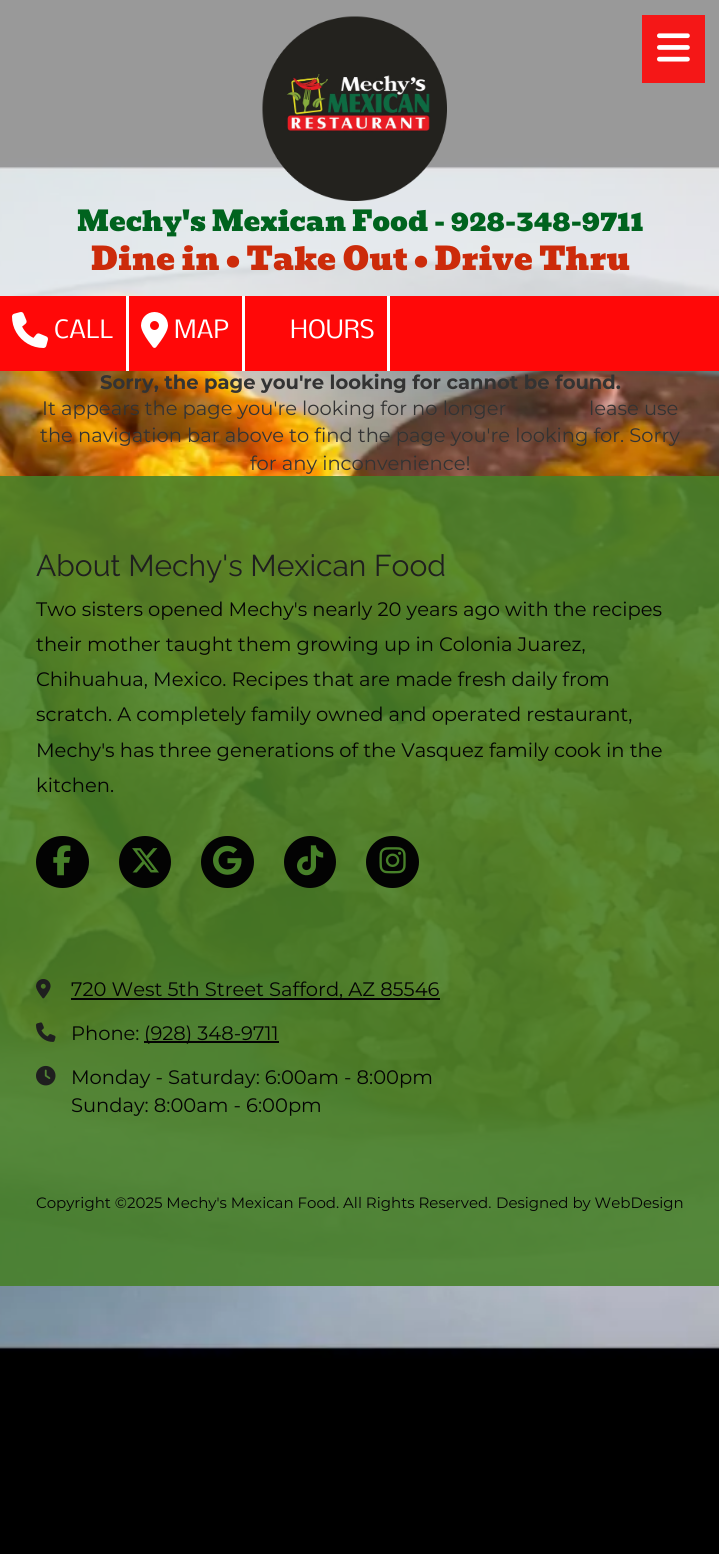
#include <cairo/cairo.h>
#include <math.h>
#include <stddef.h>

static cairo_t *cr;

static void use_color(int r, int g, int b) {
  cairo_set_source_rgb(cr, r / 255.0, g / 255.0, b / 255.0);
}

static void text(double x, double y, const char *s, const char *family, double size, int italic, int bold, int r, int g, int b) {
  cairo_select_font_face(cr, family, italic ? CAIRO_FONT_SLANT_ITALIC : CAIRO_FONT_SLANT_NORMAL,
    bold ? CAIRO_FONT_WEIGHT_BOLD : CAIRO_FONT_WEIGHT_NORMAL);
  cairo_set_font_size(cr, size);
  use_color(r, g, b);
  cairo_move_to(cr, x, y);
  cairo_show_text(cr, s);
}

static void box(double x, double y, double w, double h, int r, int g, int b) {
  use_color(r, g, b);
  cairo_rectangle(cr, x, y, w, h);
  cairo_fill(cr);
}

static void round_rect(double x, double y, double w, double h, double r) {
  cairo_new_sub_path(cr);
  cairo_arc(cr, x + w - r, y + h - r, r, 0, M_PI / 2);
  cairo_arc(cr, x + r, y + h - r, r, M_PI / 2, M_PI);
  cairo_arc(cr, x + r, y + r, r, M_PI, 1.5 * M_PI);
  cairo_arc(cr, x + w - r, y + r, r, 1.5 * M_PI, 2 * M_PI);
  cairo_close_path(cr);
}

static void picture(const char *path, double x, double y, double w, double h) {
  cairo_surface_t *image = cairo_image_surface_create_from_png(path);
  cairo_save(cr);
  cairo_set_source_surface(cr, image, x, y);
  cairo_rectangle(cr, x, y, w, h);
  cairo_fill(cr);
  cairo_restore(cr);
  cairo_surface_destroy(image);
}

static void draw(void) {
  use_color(255, 255, 255);
  cairo_paint(cr);
  picture("img_01.png", 0, 0, 719, 1554);
  cairo_set_source_rgba(cr, 1, 1, 1, 0.6);
  cairo_rectangle(cr, 0, 0, 719, 296);
  cairo_fill(cr);
  box(642, 15, 63, 68, 245, 23, 23);
  picture("img_02.png", 657, 33, 33, 29);
  picture("img_03.png", 262, 16, 185, 185);
  box(0, 296, 719, 75, 255, 8, 8);
  box(126, 296, 3, 75, 255, 255, 255);
  picture("img_04.png", 12, 312, 36, 36);
  box(242, 296, 3, 75, 255, 255, 255);
  picture("img_05.png", 141, 312, 27, 36);
  box(387, 296, 3, 75, 255, 255, 255);
  cairo_set_source_rgba(cr, 0.278, 0.502, 0.161, 0.89);
  cairo_rectangle(cr, 0, 476, 719, 810);
  cairo_fill(cr);
  use_color(3, 3, 3);
  round_rect(36, 836, 53, 52, 26);
  cairo_fill(cr);
  picture("img_06.png", 53, 845, 18, 31);
  cairo_arc(cr, 145, 862, 26, 0, 2 * M_PI);
  cairo_fill(cr);
  picture("img_07.png", 132, 848, 27, 25);
  round_rect(201, 836, 53, 52, 26);
  cairo_fill(cr);
  picture("img_08.png", 213, 845, 29, 30);
  cairo_arc(cr, 310, 862, 26, 0, 2 * M_PI);
  cairo_fill(cr);
  picture("img_09.png", 297, 845, 27, 31);
  round_rect(366, 836, 53, 52, 26);
  cairo_fill(cr);
  picture("img_10.png", 379, 847, 27, 27);
  picture("img_11.png", 36, 979, 15, 20);
  box(71, 998, 369, 2, 3, 3, 3);
  picture("img_12.png", 36, 1022, 20, 20);
  box(144, 1041, 135, 2, 3, 3, 3);
  picture("img_13.png", 36, 1065, 20, 21);
  text(77, 231, "Mechy's Mexican Food - 928-348-9711", "Bevan", 27.75, 0, 0, 0, 99, 30);
  text(91, 270, "Dine in • Take Out • Drive Thru", "Bevan", 31.5, 0, 0, 204, 43, 10);
  text(54, 338, "CALL", "Nobile", 24, 0, 0, 255, 255, 255);
  text(174, 338, "MAP", "Nobile", 24, 0, 0, 255, 255, 255);
  text(290, 338, "HOURS", "Nobile", 24, 0, 0, 255, 255, 255);
  text(100, 389, "Sorry, the page you're looking for cannot be found.", "Montserrat", 19.5, 0, 1, 51, 51, 51);
  text(42, 415, "It appears the page you're looking for no longer", "Montserrat", 19.5, 0, 0, 51, 51, 51);
  text(589, 415, "lease use", "Montserrat", 19.5, 0, 0, 51, 51, 51);
  text(40, 442, "the navigation bar above to find the page you're looking for. Sorry", "Montserrat", 19.5, 0, 0, 51, 51, 51);
  text(250, 470, "for any inconvenience!", "Montserrat", 19.5, 0, 0, 51, 51, 51);
  text(36, 576, "About Mechy's Mexican Food", "Raleway", 30, 0, 0, 31, 31, 31);
  text(36, 616, "Two sisters opened Mechy's nearly 20 years ago with the recipes", "Montserrat", 19.5, 0, 0, 3, 3, 3);
  text(36, 651, "their mother taught them growing up in Colonia Juarez,", "Montserrat", 19.5, 0, 0, 3, 3, 3);
  text(36, 686, "Chihuahua, Mexico. Recipes that are made fresh daily from", "Montserrat", 19.5, 0, 0, 3, 3, 3);
  text(36, 721, "scratch. A completely family owned and operated restaurant,", "Montserrat", 19.5, 0, 0, 3, 3, 3);
  text(36, 757, "Mechy's has three generations of the Vasquez family cook in the", "Montserrat", 19.5, 0, 0, 3, 3, 3);
  text(36, 792, "kitchen.", "Montserrat", 19.5, 0, 0, 3, 3, 3);
  text(71, 996, "720 West 5th Street Safford, AZ 85546", "Montserrat", 19.5, 0, 0, 3, 3, 3);
  text(71, 1040, "Phone:", "Montserrat", 19.5, 0, 0, 3, 3, 3);
  text(144, 1040, "(928) 348-9711", "Montserrat", 19.5, 0, 0, 3, 3, 3);
  text(71, 1084, "Monday - Saturday: 6:00am - 8:00pm", "Montserrat", 19.5, 0, 0, 3, 3, 3);
  text(71, 1112, "Sunday: 8:00am - 6:00pm", "Montserrat", 19.5, 0, 0, 3, 3, 3);
  text(36, 1208, "Copyright ©2025 Mechy's Mexican Food. All Rights Reserved.", "Montserrat", 15, 0, 0, 3, 3, 3);
  text(496, 1208, "Designed by WebDesign", "Montserrat", 15, 0, 0, 3, 3, 3);
}

int main(void) {
  cairo_surface_t *surface = cairo_image_surface_create(CAIRO_FORMAT_RGB24, 719, 1554);
  cr = cairo_create(surface);
  cairo_font_options_t *options = cairo_font_options_create();
  cairo_font_options_set_hint_metrics(options, CAIRO_HINT_METRICS_OFF);
  cairo_font_options_set_hint_style(options, CAIRO_HINT_STYLE_NONE);
  cairo_set_font_options(cr, options);
  cairo_set_miter_limit(cr, 4);
  draw();
  cairo_surface_write_to_png(surface, "out.png");
  cairo_font_options_destroy(options);
  cairo_destroy(cr);
  cairo_surface_destroy(surface);
  return 0;
}
